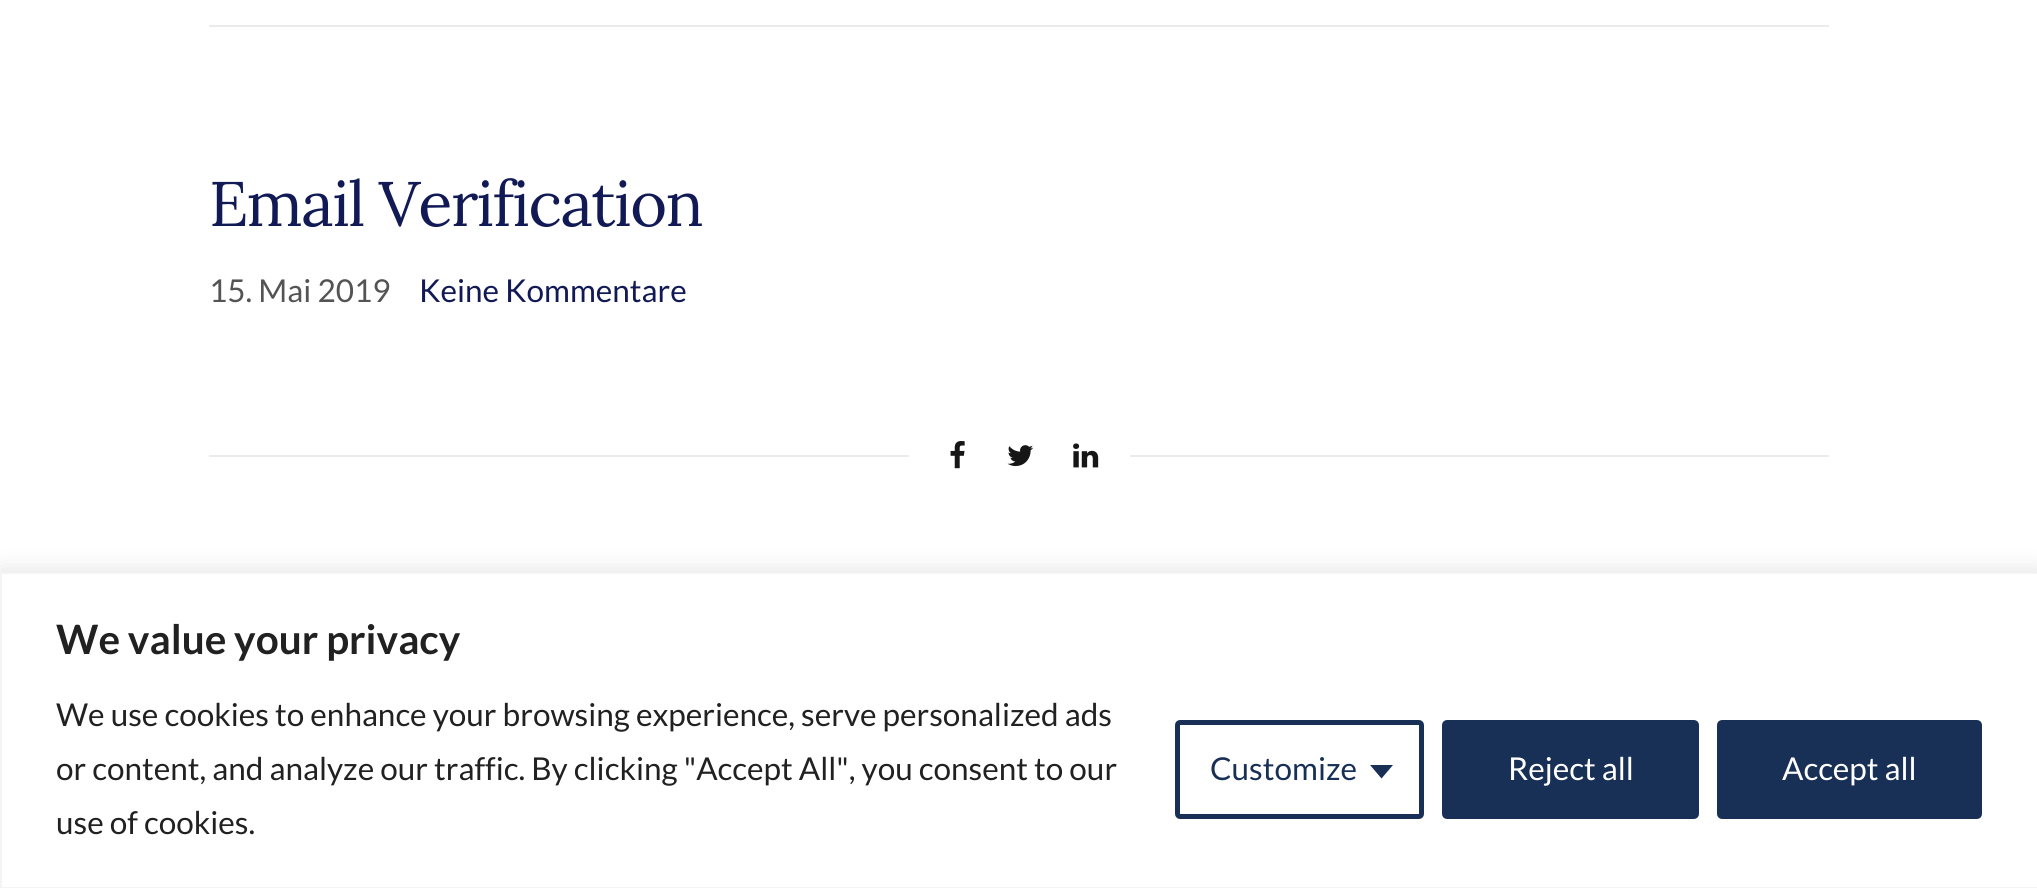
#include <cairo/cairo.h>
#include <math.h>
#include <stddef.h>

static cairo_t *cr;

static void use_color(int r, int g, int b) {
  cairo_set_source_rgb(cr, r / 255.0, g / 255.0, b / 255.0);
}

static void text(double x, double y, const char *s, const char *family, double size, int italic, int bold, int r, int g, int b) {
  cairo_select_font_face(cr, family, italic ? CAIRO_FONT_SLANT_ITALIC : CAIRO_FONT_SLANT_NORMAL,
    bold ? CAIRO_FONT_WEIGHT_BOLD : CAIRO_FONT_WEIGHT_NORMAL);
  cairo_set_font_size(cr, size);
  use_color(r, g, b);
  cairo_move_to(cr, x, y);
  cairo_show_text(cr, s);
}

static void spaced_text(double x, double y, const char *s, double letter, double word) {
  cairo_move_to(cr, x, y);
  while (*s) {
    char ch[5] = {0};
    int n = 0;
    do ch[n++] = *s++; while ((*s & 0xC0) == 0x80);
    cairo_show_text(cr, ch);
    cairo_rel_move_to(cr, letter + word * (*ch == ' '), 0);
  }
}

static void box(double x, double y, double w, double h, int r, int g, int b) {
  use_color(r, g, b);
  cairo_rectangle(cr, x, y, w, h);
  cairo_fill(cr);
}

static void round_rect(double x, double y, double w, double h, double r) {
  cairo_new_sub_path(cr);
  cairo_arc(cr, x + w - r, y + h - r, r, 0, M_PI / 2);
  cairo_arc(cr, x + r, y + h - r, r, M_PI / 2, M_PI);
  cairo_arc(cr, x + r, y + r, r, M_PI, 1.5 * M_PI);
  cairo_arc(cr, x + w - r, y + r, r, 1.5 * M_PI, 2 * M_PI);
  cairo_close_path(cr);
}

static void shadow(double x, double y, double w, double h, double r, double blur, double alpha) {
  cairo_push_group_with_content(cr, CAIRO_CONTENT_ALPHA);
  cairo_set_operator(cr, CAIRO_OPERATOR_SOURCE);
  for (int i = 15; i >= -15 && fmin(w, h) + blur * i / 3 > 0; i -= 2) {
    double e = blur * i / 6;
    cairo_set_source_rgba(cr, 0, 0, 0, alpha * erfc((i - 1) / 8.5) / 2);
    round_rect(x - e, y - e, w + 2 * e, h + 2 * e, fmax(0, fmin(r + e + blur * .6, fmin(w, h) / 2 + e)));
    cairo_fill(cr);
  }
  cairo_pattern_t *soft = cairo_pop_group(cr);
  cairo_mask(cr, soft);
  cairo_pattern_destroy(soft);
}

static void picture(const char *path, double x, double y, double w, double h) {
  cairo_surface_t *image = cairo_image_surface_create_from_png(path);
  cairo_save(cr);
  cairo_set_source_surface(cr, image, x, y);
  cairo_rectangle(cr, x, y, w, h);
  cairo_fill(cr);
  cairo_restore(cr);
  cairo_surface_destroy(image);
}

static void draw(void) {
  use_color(255, 255, 255);
  cairo_paint(cr);
  box(209, 25, 1620, 2, 235, 235, 235);
  box(209, 455, 1620, 2, 235, 235, 235);
  box(909, 455, 221, 2, 255, 255, 255);
  picture("img_01.png", 950, 441, 15, 28);
  picture("img_02.png", 1007, 445, 27, 22);
  picture("img_03.png", 1073, 443, 26, 25);
  use_color(172, 171, 171);
  shadow(0, 569, 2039, 318, 0, 11, 0.3);
  use_color(255, 255, 255);
  cairo_rectangle(cr, 1, 573, 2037, 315);
  cairo_fill_preserve(cr);
  use_color(244, 244, 244);
  cairo_stroke(cr);
  round_rect(1177.5, 722.5, 244, 94, 2.5);
  use_color(24, 48, 86);
  cairo_set_line_width(cr, 5);
  cairo_stroke(cr);
  cairo_new_path(cr);
  cairo_move_to(cr, 1370, 765);
  cairo_line_to(cr, 1393, 765);
  cairo_line_to(cr, 1381.5, 778.5);
  cairo_close_path(cr);
  cairo_fill(cr);
  round_rect(1444.5, 722.5, 252, 94, 2.5);
  cairo_fill_preserve(cr);
  cairo_stroke(cr);
  round_rect(1719.5, 722.5, 260, 94, 2.5);
  cairo_fill_preserve(cr);
  cairo_stroke(cr);
  cairo_select_font_face(cr, "Lora", CAIRO_FONT_SLANT_NORMAL, CAIRO_FONT_WEIGHT_NORMAL);
  cairo_set_font_size(cr, 63);
  use_color(18, 26, 86);
  spaced_text(209, 226, "Email Verification", -1.6, 0);
  text(209, 302, "15. Mai 2019", "Lato", 31.5, 0, 0, 84, 84, 84);
  text(419, 302, "Keine Kommentare", "Lato", 31.5, 0, 0, 18, 26, 86);
  text(56, 654, "We value your privacy", "Lato", 40.5, 0, 1, 33, 33, 33);
  text(56, 726, "We use cookies to enhance your browsing experience, serve personalized ads", "Lato", 31.5, 0, 0, 33, 33, 33);
  text(56, 780, "or content, and analyze our traffic. By clicking \"Accept All\", you consent to our", "Lato", 31.5, 0, 0, 33, 33, 33);
  text(56, 834, "use of cookies.", "Lato", 31.5, 0, 0, 33, 33, 33);
  text(1210, 780, "Customize", "Lato", 31.5, 0, 0, 24, 48, 86);
  text(1508, 780, "Reject all", "Lato", 31.5, 0, 0, 255, 255, 255);
  text(1782, 780, "Accept all", "Lato", 31.5, 0, 0, 255, 255, 255);
}

int main(void) {
  cairo_surface_t *surface = cairo_image_surface_create(CAIRO_FORMAT_RGB24, 2037, 888);
  cr = cairo_create(surface);
  cairo_font_options_t *options = cairo_font_options_create();
  cairo_font_options_set_hint_metrics(options, CAIRO_HINT_METRICS_OFF);
  cairo_font_options_set_hint_style(options, CAIRO_HINT_STYLE_NONE);
  cairo_set_font_options(cr, options);
  cairo_set_miter_limit(cr, 4);
  draw();
  cairo_surface_write_to_png(surface, "out.png");
  cairo_font_options_destroy(options);
  cairo_destroy(cr);
  cairo_surface_destroy(surface);
  return 0;
}
